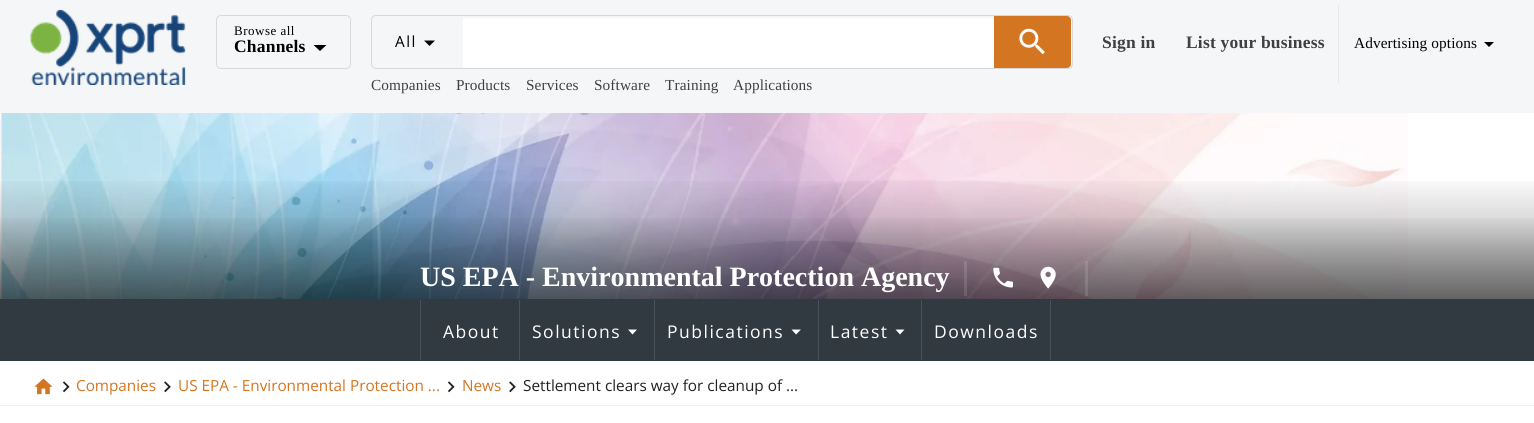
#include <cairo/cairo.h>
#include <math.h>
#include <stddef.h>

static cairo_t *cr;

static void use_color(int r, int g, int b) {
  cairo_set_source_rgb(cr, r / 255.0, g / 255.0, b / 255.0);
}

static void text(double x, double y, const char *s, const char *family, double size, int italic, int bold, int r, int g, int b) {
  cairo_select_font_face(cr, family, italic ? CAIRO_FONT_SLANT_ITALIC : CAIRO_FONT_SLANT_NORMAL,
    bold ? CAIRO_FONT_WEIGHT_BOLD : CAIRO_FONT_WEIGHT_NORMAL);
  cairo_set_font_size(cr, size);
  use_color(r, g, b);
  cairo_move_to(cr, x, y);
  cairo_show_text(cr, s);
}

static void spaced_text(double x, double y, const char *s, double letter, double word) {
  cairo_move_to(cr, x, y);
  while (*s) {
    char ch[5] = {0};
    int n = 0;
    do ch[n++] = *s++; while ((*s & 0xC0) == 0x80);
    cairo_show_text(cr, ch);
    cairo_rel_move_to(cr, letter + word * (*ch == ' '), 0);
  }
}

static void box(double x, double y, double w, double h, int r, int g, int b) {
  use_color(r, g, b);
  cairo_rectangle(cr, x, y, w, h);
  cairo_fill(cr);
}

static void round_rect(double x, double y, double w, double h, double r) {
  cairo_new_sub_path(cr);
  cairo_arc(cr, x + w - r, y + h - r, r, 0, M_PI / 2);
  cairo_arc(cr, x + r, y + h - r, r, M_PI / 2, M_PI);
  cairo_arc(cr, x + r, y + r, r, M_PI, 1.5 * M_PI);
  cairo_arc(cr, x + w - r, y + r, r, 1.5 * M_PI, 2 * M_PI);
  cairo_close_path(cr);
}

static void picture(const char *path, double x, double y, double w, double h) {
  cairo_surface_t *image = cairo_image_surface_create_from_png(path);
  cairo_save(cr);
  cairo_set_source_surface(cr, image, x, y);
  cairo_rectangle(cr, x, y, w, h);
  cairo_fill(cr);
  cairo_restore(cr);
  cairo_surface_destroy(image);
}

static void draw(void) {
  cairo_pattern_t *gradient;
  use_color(255, 255, 255);
  cairo_paint(cr);
  box(0, 0, 1534, 113, 245, 246, 247);
  picture("img_01.png", 30, 9, 156, 76);
  round_rect(216.5, 15.5, 134, 53, 4.5);
  use_color(216, 216, 217);
  cairo_set_line_width(cr, 1);
  cairo_stroke(cr);
  use_color(0, 0, 0);
  cairo_new_path(cr);
  cairo_move_to(cr, 313.5, 45);
  cairo_line_to(cr, 320, 51);
  cairo_line_to(cr, 326.5, 45);
  cairo_close_path(cr);
  cairo_fill(cr);
  round_rect(219.5, 17.5, 129, 49, 3.5);
  use_color(245, 246, 247);
  cairo_set_line_width(cr, 3);
  cairo_stroke(cr);
  round_rect(371.5, 15.5, 701, 53, 4.5);
  use_color(216, 216, 217);
  cairo_set_line_width(cr, 1);
  cairo_stroke(cr);
  use_color(0, 0, 0);
  cairo_new_path(cr);
  cairo_move_to(cr, 424, 40.5);
  cairo_line_to(cr, 429.5, 46);
  cairo_line_to(cr, 435, 40.5);
  cairo_close_path(cr);
  cairo_fill(cr);
  box(463, 18, 531, 50, 255, 255, 255);
  use_color(212, 117, 33);
  cairo_new_path(cr);
  cairo_move_to(cr, 994, 16);
  cairo_line_to(cr, 1067, 16);
  cairo_curve_to(cr, 1069, 16, 1071, 18, 1071, 20);
  cairo_line_to(cr, 1071, 64);
  cairo_curve_to(cr, 1071, 66, 1069, 68, 1067, 68);
  cairo_line_to(cr, 994, 68);
  cairo_close_path(cr);
  cairo_fill(cr);
  picture("img_02.png", 1019, 28, 26, 27);
  box(1338, 5, 1, 78, 231, 232, 233);
  use_color(0, 0, 0);
  cairo_new_path(cr);
  cairo_move_to(cr, 1484, 42);
  cairo_line_to(cr, 1489, 47);
  cairo_line_to(cr, 1494, 42);
  cairo_close_path(cr);
  cairo_fill(cr);
  picture("img_03.png", 0, 113, 1408, 186);
  gradient = cairo_pattern_create_linear(768, 172, 768, 360);
  cairo_pattern_add_color_stop_rgba(gradient, 0.01, 0, 0, 0, 0);
  cairo_pattern_add_color_stop_rgba(gradient, 0.6, 0, 0, 0, 0.35);
  cairo_pattern_add_color_stop_rgba(gradient, 1, 0, 0, 0, 0.65);
  cairo_set_source(cr, gradient);
  cairo_pattern_destroy(gradient);
  cairo_rectangle(cr, 0, 181, 1534, 118);
  cairo_fill(cr);
  gradient = cairo_pattern_create_linear(768, 211, 768, 360);
  cairo_pattern_add_color_stop_rgba(gradient, 0.01, 0, 0, 0, 0);
  cairo_pattern_add_color_stop_rgba(gradient, 0.6, 0, 0, 0, 0.35);
  cairo_pattern_add_color_stop_rgba(gradient, 1, 0, 0, 0, 0.65);
  cairo_set_source(cr, gradient);
  cairo_pattern_destroy(gradient);
  cairo_rectangle(cr, 0, 218, 1534, 81);
  cairo_fill(cr);
  cairo_set_source_rgba(cr, 1, 1, 1, 0.12);
  cairo_rectangle(cr, 964, 261, 3, 35);
  cairo_fill(cr);
  picture("img_04.png", 993, 267, 20, 21);
  picture("img_05.png", 1040, 266, 16, 23);
  cairo_rectangle(cr, 1085, 261, 3, 35);
  cairo_fill(cr);
  box(0, 299, 1534, 62, 49, 57, 65);
  box(420, 300, 1, 60, 74, 81, 88);
  box(519, 300, 1, 60, 74, 81, 88);
  use_color(255, 255, 255);
  cairo_new_path(cr);
  cairo_move_to(cr, 628, 329.5);
  cairo_line_to(cr, 632.5, 334.5);
  cairo_line_to(cr, 637, 329.5);
  cairo_close_path(cr);
  cairo_fill(cr);
  box(654, 300, 1, 60, 74, 81, 88);
  use_color(255, 255, 255);
  cairo_new_path(cr);
  cairo_move_to(cr, 791.5, 329.5);
  cairo_line_to(cr, 796, 334.5);
  cairo_line_to(cr, 801, 329.5);
  cairo_close_path(cr);
  cairo_fill(cr);
  box(818, 300, 1, 60, 74, 81, 88);
  use_color(255, 255, 255);
  cairo_new_path(cr);
  cairo_move_to(cr, 895.5, 329.5);
  cairo_line_to(cr, 900, 334.5);
  cairo_line_to(cr, 904.5, 329.5);
  cairo_close_path(cr);
  cairo_fill(cr);
  box(921, 300, 1, 60, 74, 81, 88);
  box(1050, 300, 1, 60, 74, 81, 88);
  picture("img_06.png", 34, 378, 19, 17);
  picture("img_07.png", 62, 381, 8, 12);
  picture("img_08.png", 164, 381, 7, 12);
  picture("img_07.png", 447, 381, 8, 12);
  picture("img_08.png", 509, 381, 7, 12);
  box(0, 405, 1534, 1, 240, 240, 240);
  cairo_select_font_face(cr, "Liberation Serif", CAIRO_FONT_SLANT_NORMAL, CAIRO_FONT_WEIGHT_NORMAL);
  cairo_set_font_size(cr, 13);
  use_color(0, 0, 0);
  spaced_text(234, 35, "Browse all", 0.5, 0);
  cairo_select_font_face(cr, "Liberation Serif", CAIRO_FONT_SLANT_NORMAL, CAIRO_FONT_WEIGHT_BOLD);
  cairo_set_font_size(cr, 17.5);
  spaced_text(234, 52, "Channels", 0.2, 0);
  cairo_select_font_face(cr, "Open Sans", CAIRO_FONT_SLANT_NORMAL, CAIRO_FONT_WEIGHT_NORMAL);
  cairo_set_font_size(cr, 15.3);
  spaced_text(395, 47, "All", 1.5, 0);
  cairo_select_font_face(cr, "Liberation Serif", CAIRO_FONT_SLANT_NORMAL, CAIRO_FONT_WEIGHT_NORMAL);
  use_color(64, 64, 64);
  spaced_text(371, 90, "Companies", 0.1, 0);
  spaced_text(456, 90, "Products", 0.1, 0);
  spaced_text(526, 90, "Services", 0.1, 0);
  spaced_text(594, 90, "Software", 0.1, 0);
  spaced_text(665, 90, "Training", 0.1, 0);
  spaced_text(733, 90, "Applications", 0.1, 0);
  cairo_select_font_face(cr, "Liberation Serif", CAIRO_FONT_SLANT_NORMAL, CAIRO_FONT_WEIGHT_BOLD);
  cairo_set_font_size(cr, 17.5);
  spaced_text(1102, 48, "Sign in", 0.2, 0);
  spaced_text(1186, 48, "List your business", 0.2, 0);
  cairo_select_font_face(cr, "Liberation Serif", CAIRO_FONT_SLANT_NORMAL, CAIRO_FONT_WEIGHT_NORMAL);
  cairo_set_font_size(cr, 15.3);
  use_color(0, 0, 0);
  spaced_text(1354, 48, "Advertising options", 0.1, 0);
  text(420, 286, "US EPA - Environmental Protection Agency", "Liberation Serif", 28, 0, 1, 255, 255, 255);
  cairo_select_font_face(cr, "Open Sans", CAIRO_FONT_SLANT_NORMAL, CAIRO_FONT_WEIGHT_NORMAL);
  cairo_set_font_size(cr, 17.5);
  spaced_text(443, 338, "About", 1.5, 0);
  spaced_text(532, 338, "Solutions", 1.5, 0);
  spaced_text(667, 338, "Publications", 1.5, 0);
  spaced_text(830, 338, "Latest", 1.5, 0);
  spaced_text(934, 338, "Downloads", 1.5, 0);
  text(76, 391, "Companies", "Open Sans", 15.3, 0, 0, 212, 117, 33);
  text(178, 391, "US EPA - Environmental Protection ...", "Open Sans", 15.3, 0, 0, 212, 117, 33);
  text(462, 391, "News", "Open Sans", 15.3, 0, 0, 212, 117, 33);
  text(523, 391, "Settlement clears way for cleanup of ...", "Open Sans", 15.3, 0, 0, 33, 33, 33);
}

int main(void) {
  cairo_surface_t *surface = cairo_image_surface_create(CAIRO_FORMAT_RGB24, 1534, 423);
  cr = cairo_create(surface);
  cairo_font_options_t *options = cairo_font_options_create();
  cairo_font_options_set_hint_metrics(options, CAIRO_HINT_METRICS_OFF);
  cairo_font_options_set_hint_style(options, CAIRO_HINT_STYLE_NONE);
  cairo_set_font_options(cr, options);
  cairo_set_miter_limit(cr, 4);
  draw();
  cairo_surface_write_to_png(surface, "out.png");
  cairo_font_options_destroy(options);
  cairo_destroy(cr);
  cairo_surface_destroy(surface);
  return 0;
}
